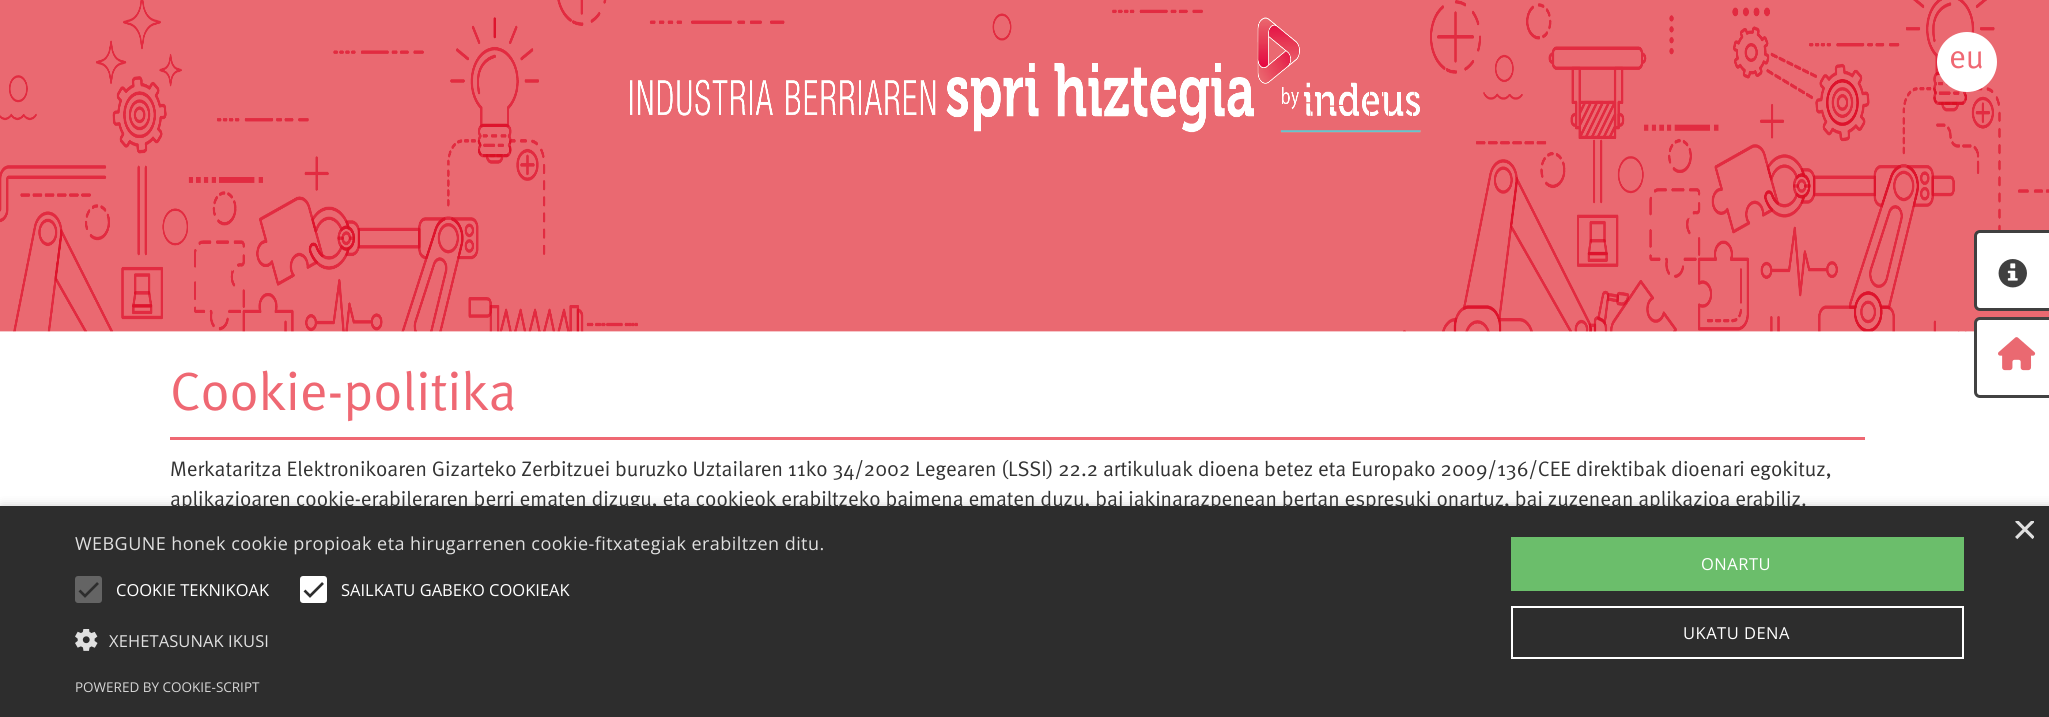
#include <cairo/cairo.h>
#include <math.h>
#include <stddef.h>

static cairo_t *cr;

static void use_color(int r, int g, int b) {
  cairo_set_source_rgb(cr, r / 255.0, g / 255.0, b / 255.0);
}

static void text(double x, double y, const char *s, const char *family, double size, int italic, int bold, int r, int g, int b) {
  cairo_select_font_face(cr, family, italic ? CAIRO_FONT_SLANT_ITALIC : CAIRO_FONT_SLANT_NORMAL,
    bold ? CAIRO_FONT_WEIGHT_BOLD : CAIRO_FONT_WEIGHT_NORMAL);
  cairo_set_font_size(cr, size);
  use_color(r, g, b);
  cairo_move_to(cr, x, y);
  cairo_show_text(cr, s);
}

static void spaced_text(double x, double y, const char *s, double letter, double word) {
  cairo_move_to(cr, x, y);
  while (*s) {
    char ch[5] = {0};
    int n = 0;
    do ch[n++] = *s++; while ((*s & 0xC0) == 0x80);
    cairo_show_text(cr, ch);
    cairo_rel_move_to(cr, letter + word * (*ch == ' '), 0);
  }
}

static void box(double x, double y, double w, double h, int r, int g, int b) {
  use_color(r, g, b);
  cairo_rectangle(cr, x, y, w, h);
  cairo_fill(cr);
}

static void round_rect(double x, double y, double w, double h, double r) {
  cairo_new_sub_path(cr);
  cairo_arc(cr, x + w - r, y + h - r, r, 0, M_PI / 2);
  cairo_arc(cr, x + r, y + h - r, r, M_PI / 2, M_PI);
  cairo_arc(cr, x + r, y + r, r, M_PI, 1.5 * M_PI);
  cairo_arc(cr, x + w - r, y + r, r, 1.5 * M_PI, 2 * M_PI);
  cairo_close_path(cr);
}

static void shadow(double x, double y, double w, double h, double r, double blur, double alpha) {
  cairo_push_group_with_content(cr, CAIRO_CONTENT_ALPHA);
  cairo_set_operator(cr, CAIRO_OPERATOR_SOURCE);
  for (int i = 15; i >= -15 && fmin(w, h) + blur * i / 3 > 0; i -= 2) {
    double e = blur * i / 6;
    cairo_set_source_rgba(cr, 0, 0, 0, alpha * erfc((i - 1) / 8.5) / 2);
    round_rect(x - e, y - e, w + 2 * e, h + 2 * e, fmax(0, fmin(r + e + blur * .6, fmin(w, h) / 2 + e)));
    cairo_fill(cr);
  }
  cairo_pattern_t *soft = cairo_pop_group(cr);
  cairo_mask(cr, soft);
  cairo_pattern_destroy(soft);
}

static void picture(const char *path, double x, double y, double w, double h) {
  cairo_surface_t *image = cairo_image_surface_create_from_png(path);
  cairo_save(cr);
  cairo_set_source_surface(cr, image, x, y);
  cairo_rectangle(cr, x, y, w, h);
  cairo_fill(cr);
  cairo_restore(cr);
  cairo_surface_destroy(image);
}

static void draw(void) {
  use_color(255, 255, 255);
  cairo_paint(cr);
  picture("img_01.png", 0, 0, 2049, 332);
  use_color(255, 255, 255);
  cairo_arc(cr, 1967, 62, 30, 0, 2 * M_PI);
  cairo_fill(cr);
  cairo_new_path(cr);
  cairo_move_to(cr, 1980, 231.5);
  cairo_line_to(cr, 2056.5, 231.5);
  cairo_line_to(cr, 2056.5, 309.5);
  cairo_line_to(cr, 1980, 309.5);
  cairo_curve_to(cr, 1977.5, 309.5, 1975.5, 307.5, 1975.5, 305);
  cairo_line_to(cr, 1975.5, 236);
  cairo_curve_to(cr, 1975.5, 233.5, 1977.5, 231.5, 1980, 231.5);
  cairo_close_path(cr);
  cairo_fill_preserve(cr);
  use_color(64, 64, 64);
  cairo_set_line_width(cr, 3);
  cairo_stroke(cr);
  picture("img_02.png", 1998, 259, 29, 29);
  use_color(255, 255, 255);
  cairo_new_path(cr);
  cairo_move_to(cr, 1980, 318.5);
  cairo_line_to(cr, 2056.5, 318.5);
  cairo_line_to(cr, 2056.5, 396.5);
  cairo_line_to(cr, 1980, 396.5);
  cairo_curve_to(cr, 1977.5, 396.5, 1975.5, 394.5, 1975.5, 392);
  cairo_line_to(cr, 1975.5, 323);
  cairo_curve_to(cr, 1975.5, 320.5, 1977.5, 318.5, 1980, 318.5);
  cairo_close_path(cr);
  cairo_fill_preserve(cr);
  use_color(66, 66, 66);
  cairo_stroke(cr);
  picture("img_03.png", 1998, 337, 38, 34);
  box(170, 437, 1695, 3, 239, 104, 115);
  use_color(0, 0, 0);
  shadow(2, 509, 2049, 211, 0, 6, 0.35);
  text(1949, 68, "eu", "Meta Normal", 33, 0, 0, 239, 104, 115);
  text(170, 410, "Cookie-politika", "Meta Normal", 54, 0, 0, 239, 104, 115);
  text(170, 476, "Merkataritza Elektronikoaren Gizarteko Zerbitzuei buruzko Uztailaren 11ko 34/2002 Legearen (LSSI) 22.2 artikuluak dioena betez eta Europako 2009/136/CEE direktibak dioenari egokituz,", "Meta Normal", 21, 0, 0, 51, 51, 51);
  text(170, 506, "aplikazioaren cookie-erabileraren berri ematen dizugu, eta cookieok erabiltzeko baimena ematen duzu, bai jakinarazpenean bertan espresuki onartuz, bai zuzenean aplikazioa erabiliz.", "Meta Normal", 21, 0, 0, 51, 51, 51);
  box(0, 506, 2049, 211, 45, 45, 45);
  cairo_save(cr);
  cairo_rectangle(cr, 2012, 521, 22, 22);
  cairo_clip(cr);
  text(2012, 544, "×", "Liberation Sans", 44, 0, 0, 224, 224, 224);
  cairo_restore(cr);
  cairo_select_font_face(cr, "Open Sans", CAIRO_FONT_SLANT_NORMAL, CAIRO_FONT_WEIGHT_NORMAL);
  cairo_set_font_size(cr, 18);
  use_color(224, 224, 224);
  spaced_text(75, 550, "WEBGUNE honek cookie propioak eta hirugarrenen cookie-fitxategiak erabiltzen ditu.", 0.45, 0);
  use_color(100, 100, 100);
  round_rect(75, 576, 27, 27, 3);
  cairo_fill(cr);
  cairo_new_path(cr);
  cairo_move_to(cr, 79.5, 590.5);
  cairo_line_to(cr, 85, 596);
  cairo_line_to(cr, 98, 583);
  use_color(45, 45, 45);
  cairo_set_line_width(cr, 2.7);
  cairo_stroke(cr);
  text(116, 596, "COOKIE TEKNIKOAK", "Open Sans", 16.5, 0, 0, 255, 255, 255);
  round_rect(301.5, 577.5, 24, 24, 1.5);
  cairo_fill_preserve(cr);
  cairo_set_line_width(cr, 3);
  cairo_stroke(cr);
  cairo_new_path(cr);
  cairo_move_to(cr, 304.5, 590.5);
  cairo_line_to(cr, 310, 596);
  cairo_line_to(cr, 323, 583);
  use_color(45, 45, 45);
  cairo_set_line_width(cr, 2.7);
  cairo_stroke(cr);
  text(341, 596, "SAILKATU GABEKO COOKIEAK", "Open Sans", 16.5, 0, 0, 255, 255, 255);
  picture("img_04.png", 75, 629, 23, 22);
  use_color(224, 224, 224);
  spaced_text(109, 647, "XEHETASUNAK IKUSI", 0.1, 0);
  box(1511, 537, 453, 54, 107, 190, 107);
  use_color(255, 255, 255);
  spaced_text(1701, 570, "ONARTU", 0.5, 0);
  cairo_rectangle(cr, 1512, 607, 451, 51);
  cairo_set_line_width(cr, 2);
  cairo_stroke(cr);
  spaced_text(1683, 639, "UKATU DENA", 0.5, 0);
  text(75, 692, "POWERED BY COOKIE-SCRIPT", "Open Sans", 13.5, 0, 0, 213, 213, 213);
}

int main(void) {
  cairo_surface_t *surface = cairo_image_surface_create(CAIRO_FORMAT_RGB24, 2049, 717);
  cr = cairo_create(surface);
  cairo_font_options_t *options = cairo_font_options_create();
  cairo_font_options_set_hint_metrics(options, CAIRO_HINT_METRICS_OFF);
  cairo_font_options_set_hint_style(options, CAIRO_HINT_STYLE_NONE);
  cairo_set_font_options(cr, options);
  cairo_set_miter_limit(cr, 4);
  draw();
  cairo_surface_write_to_png(surface, "out.png");
  cairo_font_options_destroy(options);
  cairo_destroy(cr);
  cairo_surface_destroy(surface);
  return 0;
}
